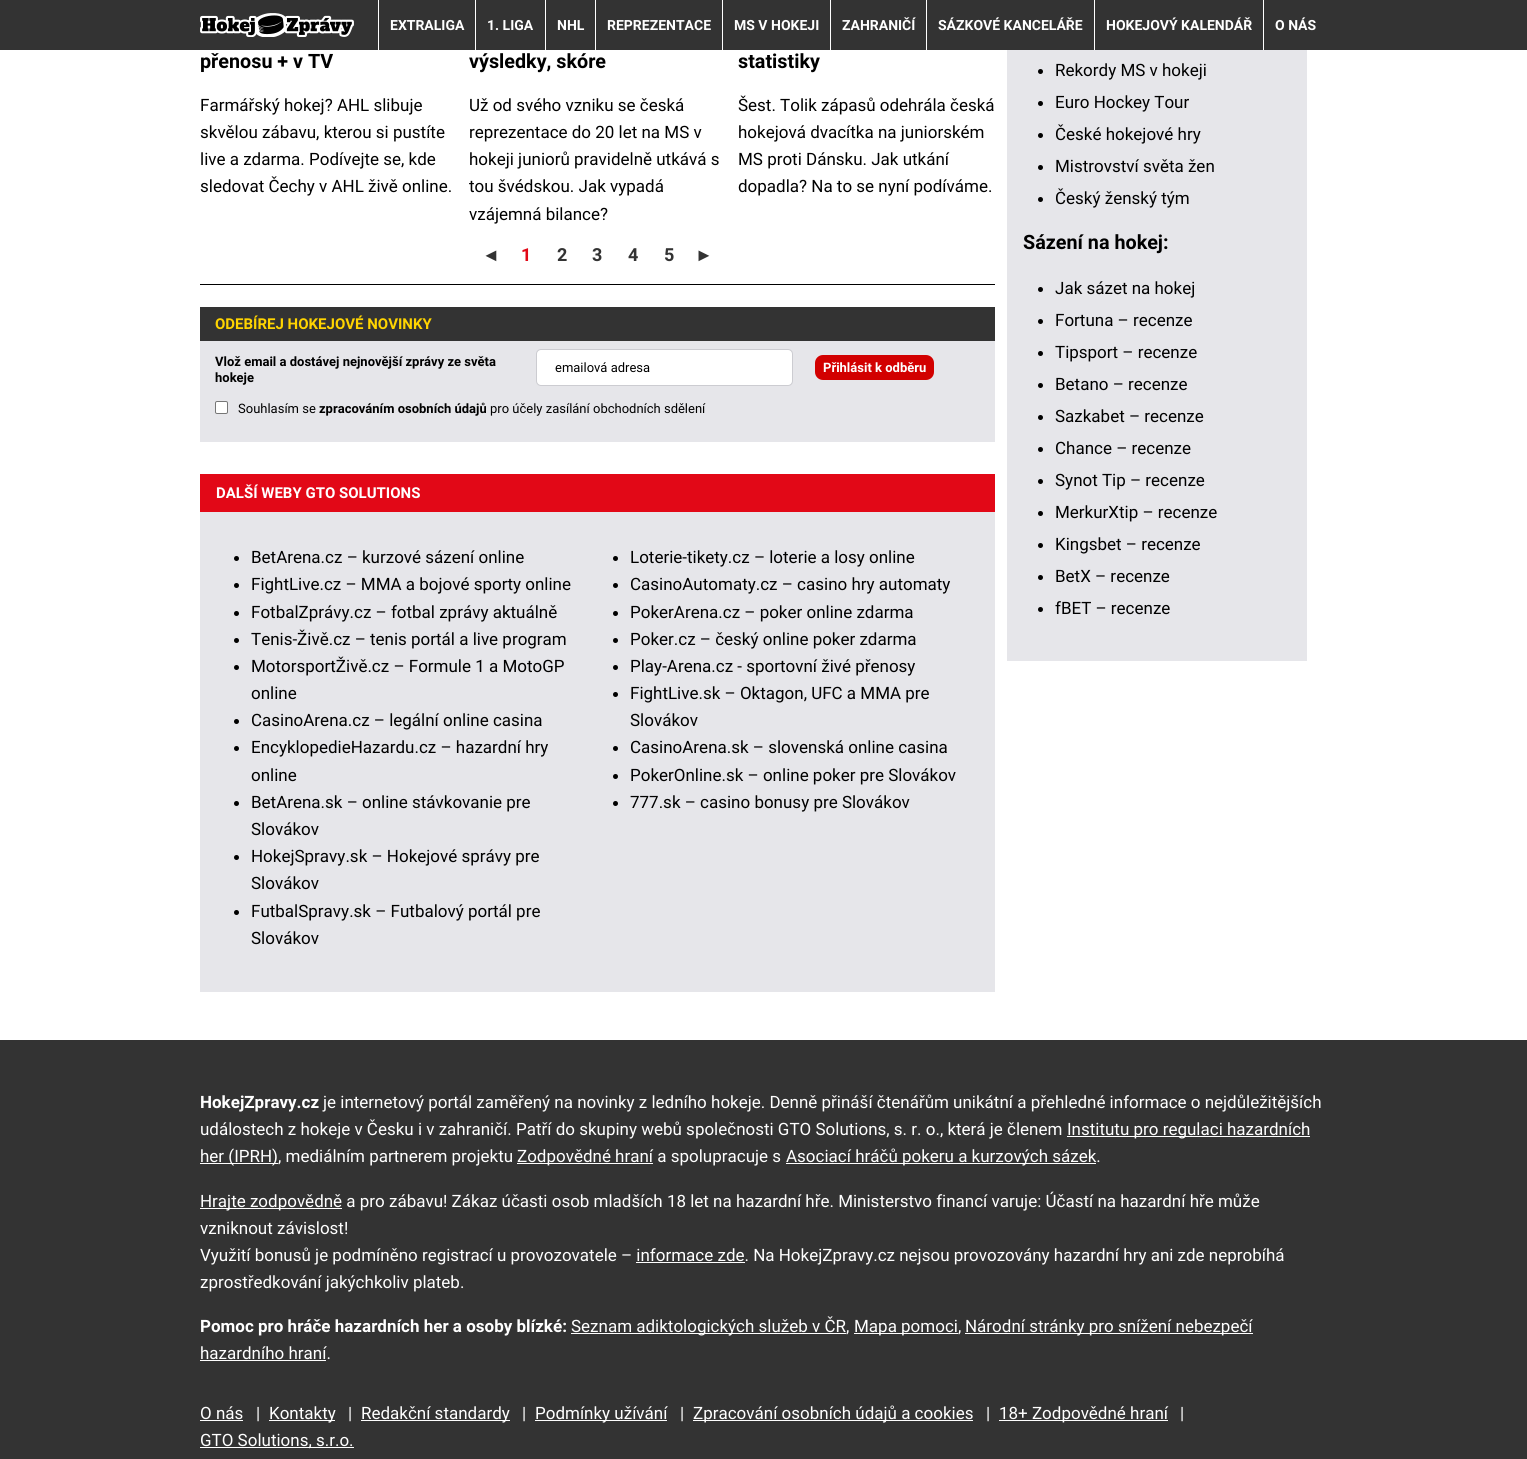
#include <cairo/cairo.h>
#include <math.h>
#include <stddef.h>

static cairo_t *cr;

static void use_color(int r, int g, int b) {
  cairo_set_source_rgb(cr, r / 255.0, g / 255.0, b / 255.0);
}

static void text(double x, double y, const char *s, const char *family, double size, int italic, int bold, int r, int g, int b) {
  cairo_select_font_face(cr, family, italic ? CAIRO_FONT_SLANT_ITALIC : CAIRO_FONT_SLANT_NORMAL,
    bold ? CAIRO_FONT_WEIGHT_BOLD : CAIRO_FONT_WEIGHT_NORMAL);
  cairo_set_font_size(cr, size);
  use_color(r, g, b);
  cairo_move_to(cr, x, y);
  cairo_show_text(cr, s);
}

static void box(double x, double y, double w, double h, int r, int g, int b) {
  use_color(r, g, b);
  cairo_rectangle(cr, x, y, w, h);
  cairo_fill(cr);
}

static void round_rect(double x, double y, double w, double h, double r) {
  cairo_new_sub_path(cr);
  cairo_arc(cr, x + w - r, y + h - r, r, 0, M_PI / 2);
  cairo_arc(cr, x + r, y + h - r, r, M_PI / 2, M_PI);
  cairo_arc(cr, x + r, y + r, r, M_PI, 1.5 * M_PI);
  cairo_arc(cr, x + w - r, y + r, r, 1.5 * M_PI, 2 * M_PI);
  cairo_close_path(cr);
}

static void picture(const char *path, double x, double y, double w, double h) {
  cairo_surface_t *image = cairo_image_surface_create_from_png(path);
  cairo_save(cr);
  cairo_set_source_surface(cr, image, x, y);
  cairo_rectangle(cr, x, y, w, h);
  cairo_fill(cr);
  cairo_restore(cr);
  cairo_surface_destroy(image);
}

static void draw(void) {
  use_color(255, 255, 255);
  cairo_paint(cr);
  box(0, 0, 1527, 50, 51, 51, 51);
  picture("img_01.png", 200, 13, 154, 24);
  box(378, 0, 1, 50, 255, 255, 255);
  box(475, 0, 1, 50, 255, 255, 255);
  box(545, 0, 1, 50, 255, 255, 255);
  box(595, 0, 1, 50, 255, 255, 255);
  box(722, 0, 1, 50, 255, 255, 255);
  box(830, 0, 1, 50, 255, 255, 255);
  box(926, 0, 1, 50, 255, 255, 255);
  box(1094, 0, 1, 50, 255, 255, 255);
  box(1263, 0, 1, 50, 255, 255, 255);
  box(200, 284, 795, 1, 0, 0, 0);
  box(200, 341, 795, 101, 230, 230, 234);
  box(200, 307, 795, 34, 51, 51, 51);
  use_color(255, 255, 255);
  round_rect(536.5, 349.5, 256, 36, 4.5);
  cairo_fill_preserve(cr);
  use_color(204, 204, 209);
  cairo_set_line_width(cr, 1);
  cairo_stroke(cr);
  use_color(210, 0, 0);
  round_rect(815, 355, 119, 25, 8);
  cairo_fill(cr);
  use_color(255, 255, 255);
  round_rect(215.5, 401.5, 12, 12, 1.5);
  cairo_fill_preserve(cr);
  use_color(118, 118, 118);
  cairo_stroke(cr);
  box(200, 474, 795, 38, 226, 8, 23);
  box(200, 512, 795, 480, 230, 230, 234);
  use_color(0, 0, 0);
  cairo_arc(cr, 236.5, 558.5, 2.5, 0, 2 * M_PI);
  cairo_fill(cr);
  cairo_arc(cr, 236.5, 585.5, 2.5, 0, 2 * M_PI);
  cairo_fill(cr);
  cairo_arc(cr, 236.5, 613.5, 2.5, 0, 2 * M_PI);
  cairo_fill(cr);
  cairo_arc(cr, 236.5, 640.5, 2.5, 0, 2 * M_PI);
  cairo_fill(cr);
  cairo_arc(cr, 236.5, 667.5, 2.5, 0, 2 * M_PI);
  cairo_fill(cr);
  cairo_arc(cr, 236.5, 721.5, 2.5, 0, 2 * M_PI);
  cairo_fill(cr);
  cairo_arc(cr, 236.5, 748.5, 2.5, 0, 2 * M_PI);
  cairo_fill(cr);
  cairo_arc(cr, 236.5, 803.5, 2.5, 0, 2 * M_PI);
  cairo_fill(cr);
  cairo_arc(cr, 236.5, 857.5, 2.5, 0, 2 * M_PI);
  cairo_fill(cr);
  cairo_arc(cr, 236.5, 912.5, 2.5, 0, 2 * M_PI);
  cairo_fill(cr);
  cairo_arc(cr, 615.5, 558.5, 2.5, 0, 2 * M_PI);
  cairo_fill(cr);
  cairo_arc(cr, 615.5, 585.5, 2.5, 0, 2 * M_PI);
  cairo_fill(cr);
  cairo_arc(cr, 615.5, 613.5, 2.5, 0, 2 * M_PI);
  cairo_fill(cr);
  cairo_arc(cr, 615.5, 640.5, 2.5, 0, 2 * M_PI);
  cairo_fill(cr);
  cairo_arc(cr, 615.5, 667.5, 2.5, 0, 2 * M_PI);
  cairo_fill(cr);
  cairo_arc(cr, 615.5, 694.5, 2.5, 0, 2 * M_PI);
  cairo_fill(cr);
  cairo_arc(cr, 615.5, 748.5, 2.5, 0, 2 * M_PI);
  cairo_fill(cr);
  cairo_arc(cr, 615.5, 776.5, 2.5, 0, 2 * M_PI);
  cairo_fill(cr);
  cairo_arc(cr, 615.5, 803.5, 2.5, 0, 2 * M_PI);
  cairo_fill(cr);
  box(1007, 50, 300, 611, 230, 230, 234);
  use_color(0, 0, 0);
  cairo_arc(cr, 1040.5, 71.5, 2.5, 0, 2 * M_PI);
  cairo_fill(cr);
  cairo_arc(cr, 1040.5, 103.5, 2.5, 0, 2 * M_PI);
  cairo_fill(cr);
  cairo_arc(cr, 1040.5, 135.5, 2.5, 0, 2 * M_PI);
  cairo_fill(cr);
  cairo_arc(cr, 1040.5, 167.5, 2.5, 0, 2 * M_PI);
  cairo_fill(cr);
  cairo_arc(cr, 1040.5, 199.5, 2.5, 0, 2 * M_PI);
  cairo_fill(cr);
  cairo_arc(cr, 1040.5, 289.5, 2.5, 0, 2 * M_PI);
  cairo_fill(cr);
  cairo_arc(cr, 1040.5, 321.5, 2.5, 0, 2 * M_PI);
  cairo_fill(cr);
  cairo_arc(cr, 1040.5, 353.5, 2.5, 0, 2 * M_PI);
  cairo_fill(cr);
  cairo_arc(cr, 1040.5, 385.5, 2.5, 0, 2 * M_PI);
  cairo_fill(cr);
  cairo_arc(cr, 1040.5, 417.5, 2.5, 0, 2 * M_PI);
  cairo_fill(cr);
  cairo_arc(cr, 1040.5, 449.5, 2.5, 0, 2 * M_PI);
  cairo_fill(cr);
  cairo_arc(cr, 1040.5, 481.5, 2.5, 0, 2 * M_PI);
  cairo_fill(cr);
  cairo_arc(cr, 1040.5, 513.5, 2.5, 0, 2 * M_PI);
  cairo_fill(cr);
  cairo_arc(cr, 1040.5, 545.5, 2.5, 0, 2 * M_PI);
  cairo_fill(cr);
  cairo_arc(cr, 1040.5, 577.5, 2.5, 0, 2 * M_PI);
  cairo_fill(cr);
  cairo_arc(cr, 1040.5, 609.5, 2.5, 0, 2 * M_PI);
  cairo_fill(cr);
  box(0, 1040, 1527, 419, 51, 51, 51);
  box(1067, 1136, 243, 1, 255, 255, 255);
  box(200, 1163, 78, 1, 255, 255, 255);
  box(517, 1163, 136, 1, 255, 255, 255);
  box(786, 1163, 310, 1, 255, 255, 255);
  box(200, 1208, 142, 1, 255, 255, 255);
  box(636, 1262, 109, 1, 255, 255, 255);
  box(571, 1333, 275, 1, 255, 255, 255);
  box(854, 1333, 104, 1, 255, 255, 255);
  box(965, 1333, 288, 1, 255, 255, 255);
  box(200, 1360, 126, 1, 255, 255, 255);
  box(200, 1420, 43, 1, 255, 255, 255);
  box(269, 1420, 66, 1, 255, 255, 255);
  box(361, 1420, 149, 1, 255, 255, 255);
  box(535, 1420, 132, 1, 255, 255, 255);
  box(693, 1420, 280, 1, 255, 255, 255);
  box(999, 1420, 169, 1, 255, 255, 255);
  box(200, 1447, 154, 1, 255, 255, 255);
  text(390, 30, "EXTRALIGA", "Roboto", 14, 0, 1, 255, 255, 255);
  text(487, 30, "1. LIGA", "Roboto", 14, 0, 1, 255, 255, 255);
  text(557, 30, "NHL", "Roboto", 14, 0, 1, 255, 255, 255);
  text(607, 30, "REPREZENTACE", "Roboto", 14, 0, 1, 255, 255, 255);
  text(734, 30, "MS V HOKEJI", "Roboto", 14, 0, 1, 255, 255, 255);
  text(842, 30, "ZAHRANIČÍ", "Roboto", 14, 0, 1, 255, 255, 255);
  text(938, 30, "SÁZKOVÉ KANCELÁŘE", "Roboto", 14, 0, 1, 255, 255, 255);
  text(1106, 30, "HOKEJOVÝ KALENDÁŘ", "Roboto", 14, 0, 1, 255, 255, 255);
  text(1275, 30, "O NÁS", "Roboto", 14, 0, 1, 255, 255, 255);
  text(200, 68, "přenosu + v TV", "Roboto", 19.75, 0, 1, 0, 0, 0);
  text(200, 111, "Farmářský hokej? AHL slibuje", "Roboto", 17, 0, 0, 0, 0, 0);
  text(200, 138, "skvělou zábavu, kterou si pustíte", "Roboto", 17, 0, 0, 0, 0, 0);
  text(200, 165, "live a zdarma. Podívejte se, kde", "Roboto", 17, 0, 0, 0, 0, 0);
  text(200, 192, "sledovat Čechy v AHL živě online.", "Roboto", 17, 0, 0, 0, 0, 0);
  text(469, 68, "výsledky, skóre", "Roboto", 19.75, 0, 1, 0, 0, 0);
  text(469, 111, "Už od svého vzniku se česká", "Roboto", 17, 0, 0, 0, 0, 0);
  text(469, 138, "reprezentace do 20 let na MS v", "Roboto", 17, 0, 0, 0, 0, 0);
  text(469, 165, "hokeji juniorů pravidelně utkává s", "Roboto", 17, 0, 0, 0, 0, 0);
  text(469, 192, "tou švédskou. Jak vypadá", "Roboto", 17, 0, 0, 0, 0, 0);
  text(469, 220, "vzájemná bilance?", "Roboto", 17, 0, 0, 0, 0, 0);
  text(738, 68, "statistiky", "Roboto", 19.75, 0, 1, 0, 0, 0);
  text(738, 111, "Šest. Tolik zápasů odehrála česká", "Roboto", 17, 0, 0, 0, 0, 0);
  text(738, 138, "hokejová dvacítka na juniorském", "Roboto", 17, 0, 0, 0, 0, 0);
  text(738, 165, "MS proti Dánsku. Jak utkání", "Roboto", 17, 0, 0, 0, 0, 0);
  text(738, 192, "dopadla? Na to se nyní podíváme.", "Roboto", 17, 0, 0, 0, 0, 0);
  text(482, 261, "◄", "Liberation Sans", 18, 0, 1, 51, 51, 51);
  text(521, 261, "1", "Roboto", 18, 0, 1, 226, 8, 23);
  text(557, 261, "2", "Roboto", 18, 0, 1, 51, 51, 51);
  text(592, 261, "3", "Roboto", 18, 0, 1, 51, 51, 51);
  text(628, 261, "4", "Roboto", 18, 0, 1, 51, 51, 51);
  text(664, 261, "5", "Roboto", 18, 0, 1, 51, 51, 51);
  text(695, 261, "►", "Liberation Sans", 18, 0, 1, 51, 51, 51);
  text(215, 329, "ODEBÍREJ HOKEJOVÉ NOVINKY", "Roboto", 15, 0, 1, 255, 212, 0);
  text(215, 366, "Vlož email a dostávej nejnovější zprávy ze světa", "Roboto", 13, 0, 1, 0, 0, 0);
  text(215, 382, "hokeje", "Roboto", 13, 0, 1, 0, 0, 0);
  text(555, 372, "emailová adresa", "Roboto", 13, 0, 0, 0, 0, 0);
  text(823, 372, "Přihlásit k odběru", "Roboto", 13, 0, 1, 255, 255, 255);
  text(238, 413, "Souhlasím se", "Roboto", 13, 0, 0, 0, 0, 0);
  text(319, 413, "zpracováním osobních údajů", "Roboto", 13, 0, 1, 0, 0, 0);
  text(490, 413, "pro účely zasílání obchodních sdělení", "Roboto", 13, 0, 0, 0, 0, 0);
  text(216, 498, "DALŠÍ WEBY GTO SOLUTIONS", "Roboto", 15, 0, 1, 255, 255, 255);
  text(251, 563, "BetArena.cz – kurzové sázení online", "Roboto", 17, 0, 0, 0, 0, 0);
  text(251, 590, "FightLive.cz – MMA a bojové sporty online", "Roboto", 17, 0, 0, 0, 0, 0);
  text(251, 618, "FotbalZprávy.cz – fotbal zprávy aktuálně", "Roboto", 17, 0, 0, 0, 0, 0);
  text(251, 645, "Tenis-Živě.cz – tenis portál a live program", "Roboto", 17, 0, 0, 0, 0, 0);
  text(251, 672, "MotorsportŽivě.cz – Formule 1 a MotoGP", "Roboto", 17, 0, 0, 0, 0, 0);
  text(251, 699, "online", "Roboto", 17, 0, 0, 0, 0, 0);
  text(251, 726, "CasinoArena.cz – legální online casina", "Roboto", 17, 0, 0, 0, 0, 0);
  text(251, 753, "EncyklopedieHazardu.cz – hazardní hry", "Roboto", 17, 0, 0, 0, 0, 0);
  text(251, 781, "online", "Roboto", 17, 0, 0, 0, 0, 0);
  text(251, 808, "BetArena.sk – online stávkovanie pre", "Roboto", 17, 0, 0, 0, 0, 0);
  text(251, 835, "Slovákov", "Roboto", 17, 0, 0, 0, 0, 0);
  text(251, 862, "HokejSpravy.sk – Hokejové správy pre", "Roboto", 17, 0, 0, 0, 0, 0);
  text(251, 889, "Slovákov", "Roboto", 17, 0, 0, 0, 0, 0);
  text(251, 917, "FutbalSpravy.sk – Futbalový portál pre", "Roboto", 17, 0, 0, 0, 0, 0);
  text(251, 944, "Slovákov", "Roboto", 17, 0, 0, 0, 0, 0);
  text(630, 563, "Loterie-tikety.cz – loterie a losy online", "Roboto", 17, 0, 0, 0, 0, 0);
  text(630, 590, "CasinoAutomaty.cz – casino hry automaty", "Roboto", 17, 0, 0, 0, 0, 0);
  text(630, 618, "PokerArena.cz – poker online zdarma", "Roboto", 17, 0, 0, 0, 0, 0);
  text(630, 645, "Poker.cz – český online poker zdarma", "Roboto", 17, 0, 0, 0, 0, 0);
  text(630, 672, "Play-Arena.cz - sportovní živé přenosy", "Roboto", 17, 0, 0, 0, 0, 0);
  text(630, 699, "FightLive.sk – Oktagon, UFC a MMA pre", "Roboto", 17, 0, 0, 0, 0, 0);
  text(630, 726, "Slovákov", "Roboto", 17, 0, 0, 0, 0, 0);
  text(630, 753, "CasinoArena.sk – slovenská online casina", "Roboto", 17, 0, 0, 0, 0, 0);
  text(630, 781, "PokerOnline.sk – online poker pre Slovákov", "Roboto", 17, 0, 0, 0, 0, 0);
  text(630, 808, "777.sk – casino bonusy pre Slovákov", "Roboto", 17, 0, 0, 0, 0, 0);
  text(1055, 76, "Rekordy MS v hokeji", "Roboto", 17, 0, 0, 0, 0, 0);
  text(1055, 108, "Euro Hockey Tour", "Roboto", 17, 0, 0, 0, 0, 0);
  text(1055, 140, "České hokejové hry", "Roboto", 17, 0, 0, 0, 0, 0);
  text(1055, 172, "Mistrovství světa žen", "Roboto", 17, 0, 0, 0, 0, 0);
  text(1055, 204, "Český ženský tým", "Roboto", 17, 0, 0, 0, 0, 0);
  text(1023, 249, "Sázení na hokej:", "Roboto", 19.75, 0, 1, 0, 0, 0);
  text(1055, 294, "Jak sázet na hokej", "Roboto", 17, 0, 0, 0, 0, 0);
  text(1055, 326, "Fortuna – recenze", "Roboto", 17, 0, 0, 0, 0, 0);
  text(1055, 358, "Tipsport – recenze", "Roboto", 17, 0, 0, 0, 0, 0);
  text(1055, 390, "Betano – recenze", "Roboto", 17, 0, 0, 0, 0, 0);
  text(1055, 422, "Sazkabet – recenze", "Roboto", 17, 0, 0, 0, 0, 0);
  text(1055, 454, "Chance – recenze", "Roboto", 17, 0, 0, 0, 0, 0);
  text(1055, 486, "Synot Tip – recenze", "Roboto", 17, 0, 0, 0, 0, 0);
  text(1055, 518, "MerkurXtip – recenze", "Roboto", 17, 0, 0, 0, 0, 0);
  text(1055, 550, "Kingsbet – recenze", "Roboto", 17, 0, 0, 0, 0, 0);
  text(1055, 582, "BetX – recenze", "Roboto", 17, 0, 0, 0, 0, 0);
  text(1055, 614, "fBET – recenze", "Roboto", 17, 0, 0, 0, 0, 0);
  text(200, 1108, "HokejZpravy.cz", "Roboto", 17, 0, 1, 255, 255, 255);
  text(323, 1108, "je internetový portál zaměřený na novinky z ledního hokeje. Denně přináší čtenářům unikátní a přehledné informace o nejdůležitějších", "Roboto", 17, 0, 0, 255, 255, 255);
  text(200, 1135, "událostech z hokeje v Česku i v zahraničí. Patří do skupiny webů společnosti GTO Solutions, s. r. o., která je členem", "Roboto", 17, 0, 0, 255, 255, 255);
  text(1067, 1135, "Institutu pro regulaci hazardních", "Roboto", 17, 0, 0, 255, 255, 255);
  text(200, 1162, "her (IPRH), mediálním partnerem projektu", "Roboto", 17, 0, 0, 255, 255, 255);
  text(517, 1162, "Zodpovědné hraní a spolupracuje s", "Roboto", 17, 0, 0, 255, 255, 255);
  text(786, 1162, "Asociací hráčů pokeru a kurzových sázek.", "Roboto", 17, 0, 0, 255, 255, 255);
  text(200, 1207, "Hrajte zodpovědně a pro zábavu! Zákaz účasti osob mladších 18 let na hazardní hře. Ministerstvo financí varuje: Účastí na hazardní hře může", "Roboto", 17, 0, 0, 255, 255, 255);
  text(200, 1234, "vzniknout závislost!", "Roboto", 17, 0, 0, 255, 255, 255);
  text(200, 1261, "Využití bonusů je podmíněno registrací u provozovatele – informace zde. Na HokejZpravy.cz nejsou provozovány hazardní hry ani zde neprobíhá", "Roboto", 17, 0, 0, 255, 255, 255);
  text(200, 1288, "zprostředkování jakýchkoliv plateb.", "Roboto", 17, 0, 0, 255, 255, 255);
  text(200, 1332, "Pomoc pro hráče hazardních her a osoby blízké:", "Roboto", 17, 0, 1, 255, 255, 255);
  text(571, 1332, "Seznam adiktologických služeb v ČR,", "Roboto", 17, 0, 0, 255, 255, 255);
  text(854, 1332, "Mapa pomoci,", "Roboto", 17, 0, 0, 255, 255, 255);
  text(965, 1332, "Národní stránky pro snížení nebezpečí", "Roboto", 17, 0, 0, 255, 255, 255);
  text(200, 1359, "hazardního hraní.", "Roboto", 17, 0, 0, 255, 255, 255);
  text(200, 1419, "O nás", "Roboto", 17, 0, 0, 255, 255, 255);
  text(256, 1419, "|", "Roboto", 17, 0, 0, 255, 255, 255);
  text(269, 1419, "Kontakty", "Roboto", 17, 0, 0, 255, 255, 255);
  text(348, 1419, "|", "Roboto", 17, 0, 0, 255, 255, 255);
  text(361, 1419, "Redakční standardy", "Roboto", 17, 0, 0, 255, 255, 255);
  text(522, 1419, "|", "Roboto", 17, 0, 0, 255, 255, 255);
  text(535, 1419, "Podmínky užívání", "Roboto", 17, 0, 0, 255, 255, 255);
  text(680, 1419, "|", "Roboto", 17, 0, 0, 255, 255, 255);
  text(693, 1419, "Zpracování osobních údajů a cookies", "Roboto", 17, 0, 0, 255, 255, 255);
  text(986, 1419, "|", "Roboto", 17, 0, 0, 255, 255, 255);
  text(999, 1419, "18+ Zodpovědné hraní", "Roboto", 17, 0, 0, 255, 255, 255);
  text(1180, 1419, "|", "Roboto", 17, 0, 0, 255, 255, 255);
  text(200, 1446, "GTO Solutions, s.r.o.", "Roboto", 17, 0, 0, 255, 255, 255);
}

int main(void) {
  cairo_surface_t *surface = cairo_image_surface_create(CAIRO_FORMAT_RGB24, 1527, 1459);
  cr = cairo_create(surface);
  cairo_font_options_t *options = cairo_font_options_create();
  cairo_font_options_set_hint_metrics(options, CAIRO_HINT_METRICS_OFF);
  cairo_font_options_set_hint_style(options, CAIRO_HINT_STYLE_NONE);
  cairo_set_font_options(cr, options);
  cairo_set_miter_limit(cr, 4);
  draw();
  cairo_surface_write_to_png(surface, "out.png");
  cairo_font_options_destroy(options);
  cairo_destroy(cr);
  cairo_surface_destroy(surface);
  return 0;
}
